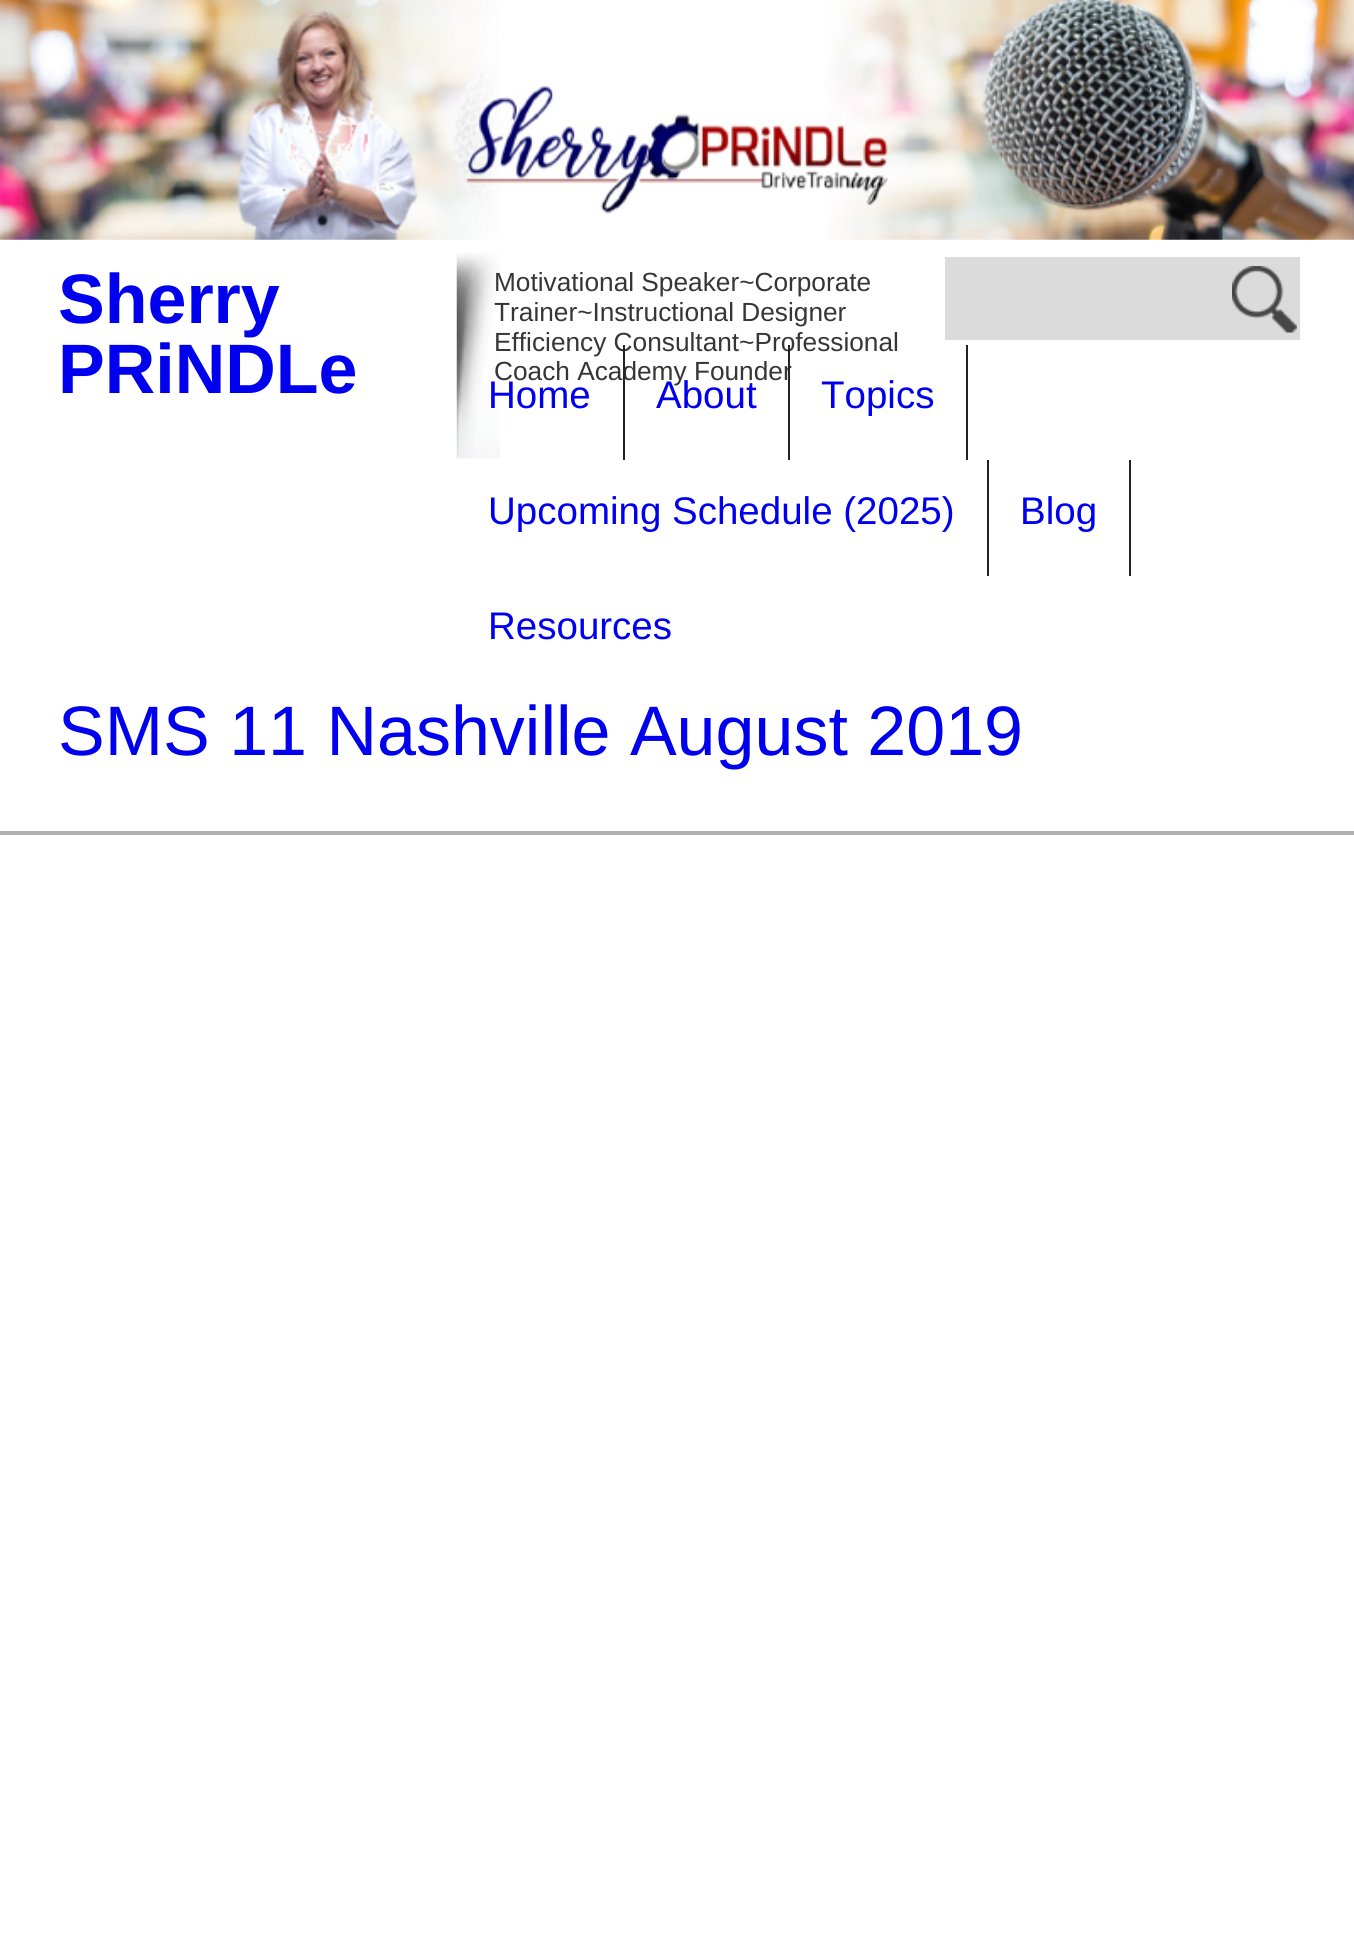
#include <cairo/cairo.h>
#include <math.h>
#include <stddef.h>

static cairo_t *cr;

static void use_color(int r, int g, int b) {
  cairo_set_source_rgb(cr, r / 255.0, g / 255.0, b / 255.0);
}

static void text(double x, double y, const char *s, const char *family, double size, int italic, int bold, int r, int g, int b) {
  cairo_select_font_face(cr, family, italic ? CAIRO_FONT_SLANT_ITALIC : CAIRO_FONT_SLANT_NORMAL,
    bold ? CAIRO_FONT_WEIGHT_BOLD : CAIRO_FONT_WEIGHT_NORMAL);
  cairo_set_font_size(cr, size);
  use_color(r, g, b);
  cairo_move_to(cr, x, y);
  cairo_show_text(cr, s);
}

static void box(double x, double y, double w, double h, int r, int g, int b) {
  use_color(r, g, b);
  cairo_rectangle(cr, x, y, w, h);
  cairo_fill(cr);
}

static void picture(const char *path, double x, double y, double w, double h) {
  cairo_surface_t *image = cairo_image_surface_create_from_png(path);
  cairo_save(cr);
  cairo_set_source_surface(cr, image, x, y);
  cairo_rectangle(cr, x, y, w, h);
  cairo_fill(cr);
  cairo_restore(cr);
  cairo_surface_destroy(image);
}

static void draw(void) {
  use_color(255, 255, 255);
  cairo_paint(cr);
  picture("img_01.png", 0, 0, 1354, 240);
  box(945, 257, 355, 83, 219, 219, 219);
  picture("img_03.png", 1232, 266, 65, 67);
  box(966, 345, 2, 115, 35, 35, 35);
  box(987, 460, 2, 116, 35, 35, 35);
  box(1129, 460, 2, 116, 35, 35, 35);
  box(0, 831, 1354, 4, 177, 176, 176);
  text(58, 323, "Sherry", "Liberation Sans", 70, 0, 1, 0, 0, 238);
  text(58, 393, "PRiNDLe", "Liberation Sans", 70, 0, 1, 0, 0, 238);
  text(494, 291, "Motivational Speaker~Corporate", "Liberation Sans", 26.25, 0, 0, 55, 54, 54);
  text(494, 321, "Trainer~Instructional Designer", "Liberation Sans", 26.25, 0, 0, 55, 54, 54);
  text(494, 351, "Efficiency Consultant~Professional", "Liberation Sans", 26.25, 0, 0, 55, 54, 54);
  text(494, 380, "Coach Academy Founder", "Liberation Sans", 26.25, 0, 0, 55, 54, 54);
  picture("img_02.png", 456, 252, 44, 207);
  box(623, 345, 2, 115, 35, 35, 35);
  text(488, 408, "Home", "Liberation Sans", 38.5, 0, 0, 0, 0, 238);
  box(788, 345, 2, 115, 35, 35, 35);
  text(656, 408, "About", "Liberation Sans", 38.5, 0, 0, 0, 0, 238);
  text(821, 408, "Topics", "Liberation Sans", 38.5, 0, 0, 0, 0, 238);
  text(488, 524, "Upcoming Schedule (2025)", "Liberation Sans", 38.5, 0, 0, 0, 0, 238);
  text(1020, 524, "Blog", "Liberation Sans", 38.5, 0, 0, 0, 0, 238);
  text(488, 639, "Resources", "Liberation Sans", 38.5, 0, 0, 0, 0, 238);
  text(58, 755, "SMS 11 Nashville August 2019", "Liberation Sans", 70, 0, 0, 0, 0, 238);
}

int main(void) {
  cairo_surface_t *surface = cairo_image_surface_create(CAIRO_FORMAT_RGB24, 1354, 1946);
  cr = cairo_create(surface);
  cairo_font_options_t *options = cairo_font_options_create();
  cairo_font_options_set_hint_metrics(options, CAIRO_HINT_METRICS_OFF);
  cairo_font_options_set_hint_style(options, CAIRO_HINT_STYLE_NONE);
  cairo_set_font_options(cr, options);
  cairo_set_miter_limit(cr, 4);
  draw();
  cairo_surface_write_to_png(surface, "out.png");
  cairo_font_options_destroy(options);
  cairo_destroy(cr);
  cairo_surface_destroy(surface);
  return 0;
}
